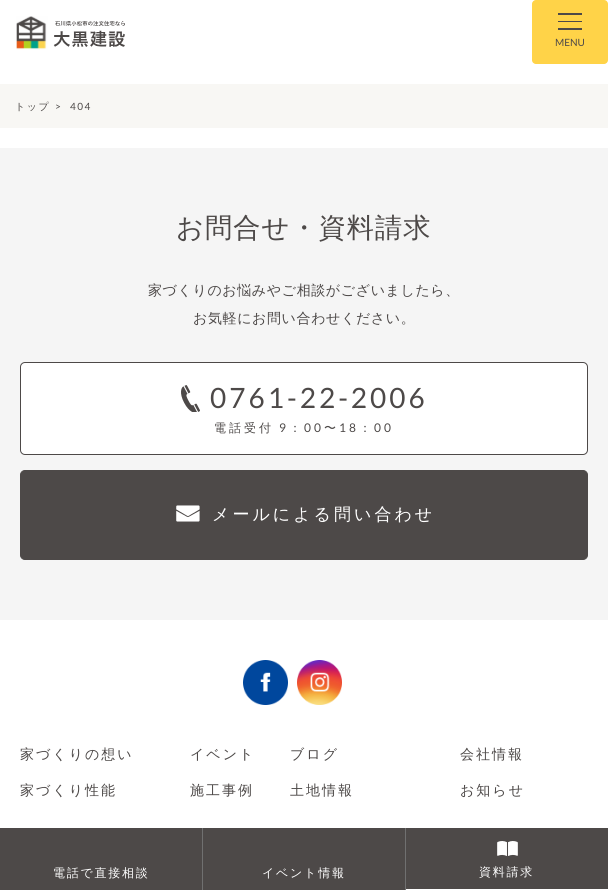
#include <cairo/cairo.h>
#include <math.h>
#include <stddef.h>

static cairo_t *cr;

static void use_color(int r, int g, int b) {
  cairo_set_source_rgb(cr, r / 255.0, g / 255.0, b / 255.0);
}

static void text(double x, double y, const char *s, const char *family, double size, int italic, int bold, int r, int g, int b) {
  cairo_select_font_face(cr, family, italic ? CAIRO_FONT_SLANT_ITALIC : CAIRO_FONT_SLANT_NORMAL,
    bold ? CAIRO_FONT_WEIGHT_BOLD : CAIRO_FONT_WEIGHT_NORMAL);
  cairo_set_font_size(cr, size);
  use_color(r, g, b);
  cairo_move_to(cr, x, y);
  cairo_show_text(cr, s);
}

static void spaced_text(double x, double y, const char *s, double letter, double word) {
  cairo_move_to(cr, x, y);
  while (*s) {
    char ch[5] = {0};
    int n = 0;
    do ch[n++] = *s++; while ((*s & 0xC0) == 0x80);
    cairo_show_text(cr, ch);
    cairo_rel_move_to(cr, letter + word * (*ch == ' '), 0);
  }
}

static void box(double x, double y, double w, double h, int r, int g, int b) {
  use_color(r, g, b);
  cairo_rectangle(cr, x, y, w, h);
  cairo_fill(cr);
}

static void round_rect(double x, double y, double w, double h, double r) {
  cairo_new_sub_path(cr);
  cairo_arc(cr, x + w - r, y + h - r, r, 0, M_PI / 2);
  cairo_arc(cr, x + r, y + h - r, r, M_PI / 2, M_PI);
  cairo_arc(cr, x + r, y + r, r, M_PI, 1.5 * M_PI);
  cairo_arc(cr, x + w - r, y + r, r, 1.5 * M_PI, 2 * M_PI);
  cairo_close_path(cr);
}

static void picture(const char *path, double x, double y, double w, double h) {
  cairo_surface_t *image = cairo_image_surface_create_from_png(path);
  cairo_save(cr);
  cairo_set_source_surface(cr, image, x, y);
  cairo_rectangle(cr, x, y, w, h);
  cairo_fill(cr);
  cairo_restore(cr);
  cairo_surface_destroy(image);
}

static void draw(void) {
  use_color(255, 255, 255);
  cairo_paint(cr);
  picture("img_01.png", 16, 16, 109, 34);
  use_color(255, 211, 72);
  round_rect(532, 0, 76, 64, 4);
  cairo_fill(cr);
  box(558, 13, 24, 2, 77, 73, 72);
  box(558, 21, 24, 1, 77, 73, 72);
  box(558, 28, 24, 2, 77, 73, 72);
  box(0, 84, 608, 44, 248, 247, 244);
  box(0, 148, 608, 472, 245, 245, 245);
  use_color(255, 255, 255);
  round_rect(20.5, 362.5, 567, 92, 4.5);
  cairo_fill_preserve(cr);
  use_color(77, 73, 72);
  cairo_set_line_width(cr, 1);
  cairo_stroke(cr);
  picture("img_02.png", 181, 385, 19, 27);
  round_rect(20.5, 470.5, 567, 89, 4.5);
  cairo_fill_preserve(cr);
  cairo_stroke(cr);
  picture("img_03.png", 176, 505, 24, 17);
  picture("img_04.png", 243, 660, 45, 45);
  picture("img_05.png", 297, 660, 45, 45);
  box(0, 828, 202, 62, 77, 73, 72);
  box(405, 828, 1, 62, 112, 112, 112);
  box(202, 828, 1, 62, 112, 112, 112);
  box(203, 828, 202, 62, 77, 73, 72);
  box(406, 828, 202, 61, 77, 73, 72);
  picture("img_06.png", 497, 841, 21, 15);
  text(555, 46, "MENU", "Lato", 10, 0, 0, 77, 73, 72);
  cairo_select_font_face(cr, "WenQuanYi Zen Hei Medium", CAIRO_FONT_SLANT_NORMAL, CAIRO_FONT_WEIGHT_NORMAL);
  spaced_text(15, 110, "トップ", 1.5, 0);
  cairo_select_font_face(cr, "Lato", CAIRO_FONT_SLANT_NORMAL, CAIRO_FONT_WEIGHT_NORMAL);
  spaced_text(55, 110, ">", 1, 0);
  spaced_text(70, 110, "404", 1.5, 0);
  cairo_select_font_face(cr, "WenQuanYi Zen Hei Medium", CAIRO_FONT_SLANT_NORMAL, CAIRO_FONT_WEIGHT_NORMAL);
  cairo_set_font_size(cr, 27.25);
  spaced_text(176, 237, "お問合せ・資料請求", 1, 0);
  cairo_set_font_size(cr, 14);
  spaced_text(148, 295, "家づくりのお悩みやご相談がございましたら、", 0.6, 0);
  spaced_text(193, 323, "お気軽にお問い合わせください。", 0.6, 0);
  cairo_select_font_face(cr, "Lato", CAIRO_FONT_SLANT_NORMAL, CAIRO_FONT_WEIGHT_NORMAL);
  cairo_set_font_size(cr, 28);
  spaced_text(210, 408, "0761-22-2006", 3, 0);
  cairo_select_font_face(cr, "WenQuanYi Zen Hei Medium", CAIRO_FONT_SLANT_NORMAL, CAIRO_FONT_WEIGHT_NORMAL);
  cairo_set_font_size(cr, 12);
  spaced_text(214, 432, "電話受付", 3, 0);
  cairo_select_font_face(cr, "Lato", CAIRO_FONT_SLANT_NORMAL, CAIRO_FONT_WEIGHT_NORMAL);
  spaced_text(279, 432, "9", 3, 0);
  cairo_select_font_face(cr, "WenQuanYi Zen Hei Medium", CAIRO_FONT_SLANT_NORMAL, CAIRO_FONT_WEIGHT_NORMAL);
  spaced_text(289, 432, "：", 3, 0);
  cairo_select_font_face(cr, "Lato", CAIRO_FONT_SLANT_NORMAL, CAIRO_FONT_WEIGHT_NORMAL);
  spaced_text(304, 432, "00", 3, 0);
  cairo_select_font_face(cr, "WenQuanYi Zen Hei Medium", CAIRO_FONT_SLANT_NORMAL, CAIRO_FONT_WEIGHT_NORMAL);
  spaced_text(324, 432, "〜", 3, 0);
  cairo_select_font_face(cr, "Lato", CAIRO_FONT_SLANT_NORMAL, CAIRO_FONT_WEIGHT_NORMAL);
  spaced_text(339, 432, "18", 3, 0);
  cairo_select_font_face(cr, "WenQuanYi Zen Hei Medium", CAIRO_FONT_SLANT_NORMAL, CAIRO_FONT_WEIGHT_NORMAL);
  spaced_text(359, 432, "：", 3, 0);
  cairo_select_font_face(cr, "Lato", CAIRO_FONT_SLANT_NORMAL, CAIRO_FONT_WEIGHT_NORMAL);
  spaced_text(374, 432, "00", 3, 0);
  cairo_select_font_face(cr, "WenQuanYi Zen Hei Medium", CAIRO_FONT_SLANT_NORMAL, CAIRO_FONT_WEIGHT_NORMAL);
  cairo_set_font_size(cr, 17);
  use_color(255, 255, 255);
  spaced_text(212, 520, "メールによる問い合わせ", 3, 0);
  cairo_set_font_size(cr, 14);
  use_color(77, 73, 72);
  spaced_text(20, 759, "家づくりの想い", 2, 0);
  spaced_text(190, 759, "イベント", 2, 0);
  spaced_text(290, 759, "ブログ", 2, 0);
  spaced_text(460, 759, "会社情報", 2, 0);
  spaced_text(20, 795, "家づくり性能", 2, 0);
  spaced_text(190, 795, "施工事例", 2, 0);
  spaced_text(290, 795, "土地情報", 2, 0);
  spaced_text(460, 795, "お知らせ", 2, 0);
  cairo_set_font_size(cr, 12);
  use_color(255, 255, 255);
  spaced_text(53, 877, "電話で直接相談", 1.75, 0);
  spaced_text(262, 877, "イベント情報", 1.75, 0);
  spaced_text(479, 876, "資料請求", 1.75, 0);
}

int main(void) {
  cairo_surface_t *surface = cairo_image_surface_create(CAIRO_FORMAT_RGB24, 608, 890);
  cr = cairo_create(surface);
  cairo_font_options_t *options = cairo_font_options_create();
  cairo_font_options_set_hint_metrics(options, CAIRO_HINT_METRICS_OFF);
  cairo_font_options_set_hint_style(options, CAIRO_HINT_STYLE_NONE);
  cairo_set_font_options(cr, options);
  cairo_set_miter_limit(cr, 4);
  draw();
  cairo_surface_write_to_png(surface, "out.png");
  cairo_font_options_destroy(options);
  cairo_destroy(cr);
  cairo_surface_destroy(surface);
  return 0;
}
